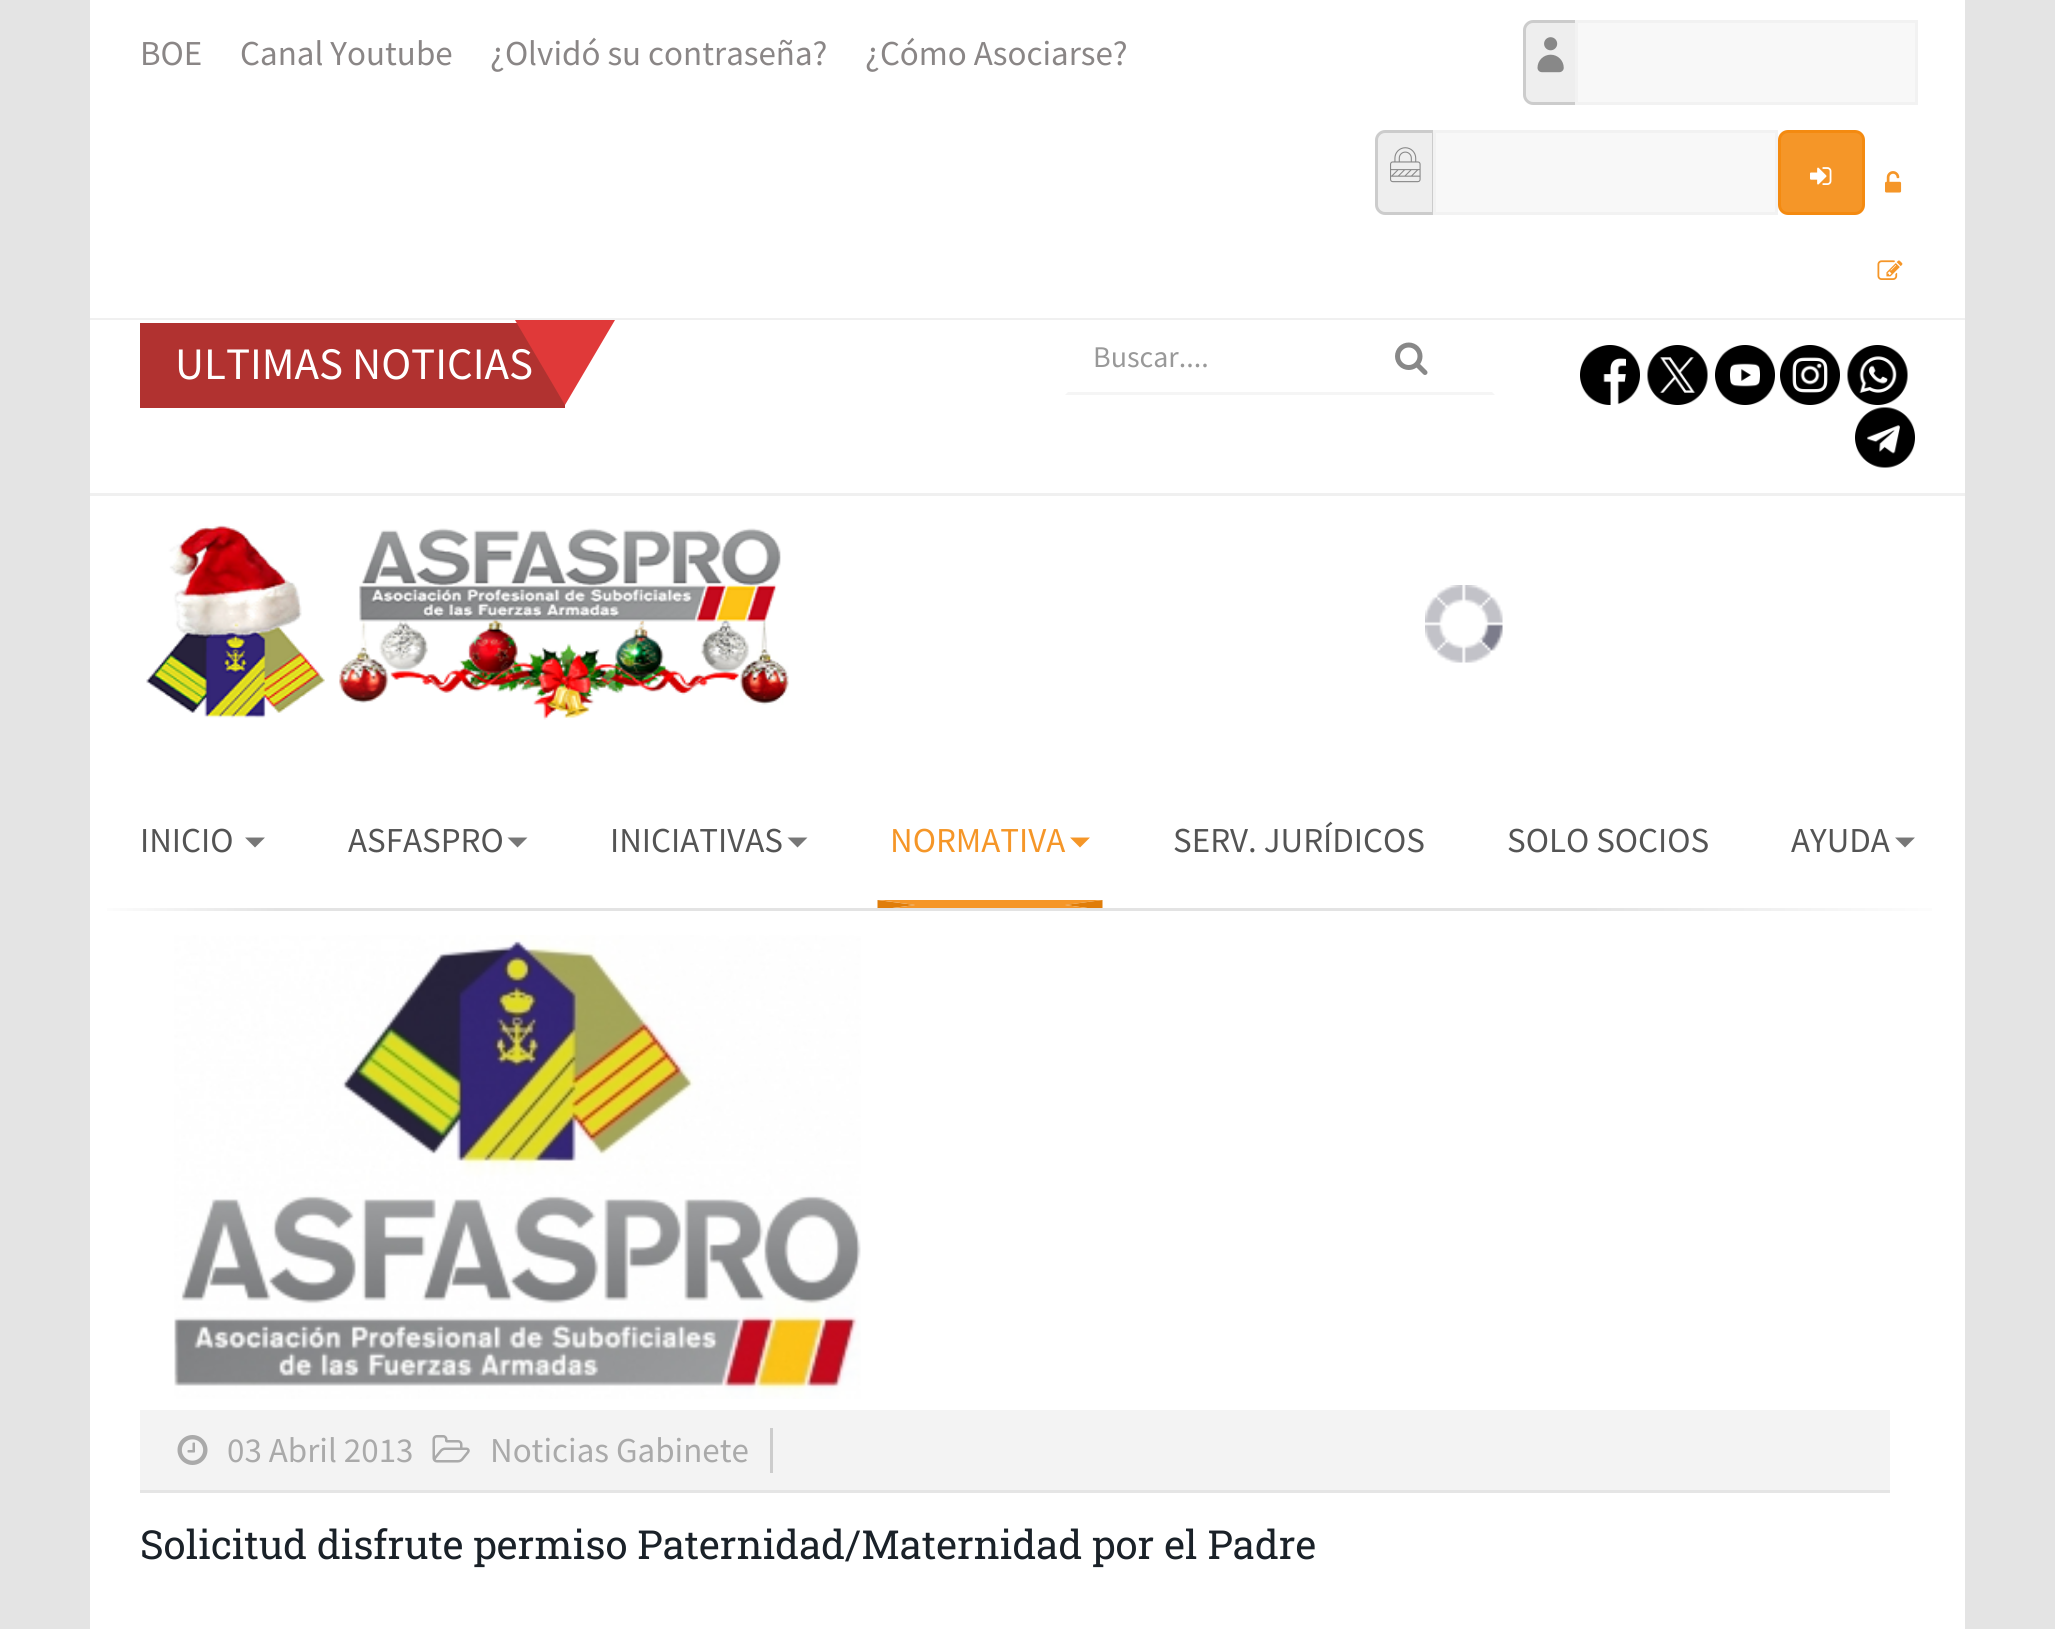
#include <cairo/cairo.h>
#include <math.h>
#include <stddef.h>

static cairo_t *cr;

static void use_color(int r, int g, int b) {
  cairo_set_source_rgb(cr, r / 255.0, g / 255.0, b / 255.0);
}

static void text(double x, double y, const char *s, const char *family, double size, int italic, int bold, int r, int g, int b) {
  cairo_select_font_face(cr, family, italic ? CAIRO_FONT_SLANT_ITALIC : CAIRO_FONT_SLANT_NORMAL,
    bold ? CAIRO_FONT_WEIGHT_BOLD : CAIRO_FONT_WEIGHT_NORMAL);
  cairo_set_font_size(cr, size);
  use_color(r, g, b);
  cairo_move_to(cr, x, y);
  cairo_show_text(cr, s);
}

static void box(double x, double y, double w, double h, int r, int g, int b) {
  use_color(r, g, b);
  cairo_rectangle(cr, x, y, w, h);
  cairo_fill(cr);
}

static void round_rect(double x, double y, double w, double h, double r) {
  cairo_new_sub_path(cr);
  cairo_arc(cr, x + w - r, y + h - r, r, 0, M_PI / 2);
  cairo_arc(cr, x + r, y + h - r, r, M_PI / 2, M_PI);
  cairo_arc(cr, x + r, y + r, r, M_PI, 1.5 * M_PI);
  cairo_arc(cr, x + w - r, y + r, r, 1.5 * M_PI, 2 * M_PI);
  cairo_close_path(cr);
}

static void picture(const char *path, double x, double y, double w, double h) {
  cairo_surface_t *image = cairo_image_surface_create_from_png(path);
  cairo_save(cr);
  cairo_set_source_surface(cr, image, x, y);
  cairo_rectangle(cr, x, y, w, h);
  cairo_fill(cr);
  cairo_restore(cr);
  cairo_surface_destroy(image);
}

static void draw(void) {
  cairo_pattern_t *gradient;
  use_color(228, 228, 228);
  cairo_paint(cr);
  box(90, 0, 1875, 1629, 255, 255, 255);
  use_color(238, 238, 238);
  cairo_new_path(cr);
  cairo_move_to(cr, 1533, 21.5);
  cairo_line_to(cr, 1576.5, 21.5);
  cairo_line_to(cr, 1576.5, 103.5);
  cairo_line_to(cr, 1533, 103.5);
  cairo_curve_to(cr, 1528.5, 103.5, 1524.5, 99.5, 1524.5, 95);
  cairo_line_to(cr, 1524.5, 30);
  cairo_curve_to(cr, 1524.5, 25.5, 1528.5, 21.5, 1533, 21.5);
  cairo_close_path(cr);
  cairo_fill_preserve(cr);
  use_color(204, 204, 204);
  cairo_set_line_width(cr, 3);
  cairo_stroke(cr);
  picture("img_01.png", 1537, 37, 27, 36);
  use_color(248, 248, 248);
  cairo_rectangle(cr, 1576.5, 21.5, 340, 82);
  cairo_fill_preserve(cr);
  use_color(242, 242, 242);
  cairo_stroke(cr);
  use_color(238, 238, 238);
  cairo_new_path(cr);
  cairo_move_to(cr, 1385, 131.5);
  cairo_line_to(cr, 1433.5, 131.5);
  cairo_line_to(cr, 1433.5, 213.5);
  cairo_line_to(cr, 1385, 213.5);
  cairo_curve_to(cr, 1380.5, 213.5, 1376.5, 209.5, 1376.5, 205);
  cairo_line_to(cr, 1376.5, 140);
  cairo_curve_to(cr, 1376.5, 135.5, 1380.5, 131.5, 1385, 131.5);
  cairo_close_path(cr);
  cairo_fill_preserve(cr);
  use_color(204, 204, 204);
  cairo_stroke(cr);
  picture("img_02.png", 1390, 147, 31, 36);
  use_color(248, 248, 248);
  cairo_rectangle(cr, 1434.5, 131.5, 342, 82);
  cairo_fill_preserve(cr);
  use_color(242, 242, 242);
  cairo_stroke(cr);
  use_color(245, 150, 40);
  round_rect(1779.5, 131.5, 84, 82, 8.5);
  cairo_fill_preserve(cr);
  use_color(244, 138, 16);
  cairo_stroke(cr);
  picture("img_03.png", 1810, 167, 22, 18);
  picture("img_04.png", 1885, 171, 17, 22);
  picture("img_05.png", 1877, 260, 26, 20);
  box(90, 318, 1875, 2, 240, 240, 240);
  box(90, 493, 1875, 3, 240, 240, 240);
  box(140, 323, 425, 85, 177, 50, 48);
  use_color(245, 245, 245);
  cairo_new_path(cr);
  cairo_move_to(cr, 1495, 395);
  cairo_line_to(cr, 1065, 395);
  cairo_line_to(cr, 1068, 392);
  cairo_line_to(cr, 1492, 392);
  cairo_close_path(cr);
  cairo_fill(cr);
  picture("img_06.png", 1395, 342, 33, 33);
  picture("img_07.png", 1580, 345, 60, 60);
  picture("img_08.png", 1647, 345, 61, 60);
  picture("img_09.png", 1715, 345, 60, 60);
  picture("img_10.png", 1780, 345, 60, 60);
  picture("img_11.png", 1847, 345, 61, 60);
  picture("img_12.png", 1855, 407, 60, 61);
  picture("img_13.png", 146, 525, 643, 195);
  picture("img_14.png", 1425, 585, 78, 78);
  use_color(119, 119, 119);
  cairo_new_path(cr);
  cairo_move_to(cr, 245, 837.5);
  cairo_line_to(cr, 265, 837.5);
  cairo_line_to(cr, 255, 847.5);
  cairo_close_path(cr);
  cairo_fill(cr);
  cairo_new_path(cr);
  cairo_move_to(cr, 507.5, 837.5);
  cairo_line_to(cr, 527.5, 837.5);
  cairo_line_to(cr, 517.5, 847.5);
  cairo_close_path(cr);
  cairo_fill(cr);
  cairo_new_path(cr);
  cairo_move_to(cr, 787.5, 837.5);
  cairo_line_to(cr, 807.5, 837.5);
  cairo_line_to(cr, 797.5, 847.5);
  cairo_close_path(cr);
  cairo_fill(cr);
  use_color(245, 150, 40);
  cairo_new_path(cr);
  cairo_move_to(cr, 1070, 837.5);
  cairo_line_to(cr, 1090, 837.5);
  cairo_line_to(cr, 1080, 847.5);
  cairo_close_path(cr);
  cairo_fill(cr);
  cairo_new_path(cr);
  cairo_move_to(cr, 878, 900);
  cairo_line_to(cr, 1102, 900);
  cairo_line_to(cr, 1065, 905);
  cairo_line_to(cr, 915, 905);
  cairo_close_path(cr);
  cairo_fill(cr);
  use_color(224, 125, 10);
  cairo_new_path(cr);
  cairo_move_to(cr, 1102.5, 900);
  cairo_line_to(cr, 1102.5, 910);
  cairo_line_to(cr, 1065, 905);
  cairo_close_path(cr);
  cairo_fill(cr);
  use_color(245, 150, 40);
  cairo_new_path(cr);
  cairo_move_to(cr, 1102, 910);
  cairo_line_to(cr, 878, 910);
  cairo_line_to(cr, 915, 905);
  cairo_line_to(cr, 1065, 905);
  cairo_close_path(cr);
  cairo_fill(cr);
  use_color(224, 125, 10);
  cairo_new_path(cr);
  cairo_move_to(cr, 877.5, 910);
  cairo_line_to(cr, 877.5, 900);
  cairo_line_to(cr, 915, 905);
  cairo_close_path(cr);
  cairo_fill(cr);
  use_color(119, 119, 119);
  cairo_new_path(cr);
  cairo_move_to(cr, 1895, 837.5);
  cairo_line_to(cr, 1915, 837.5);
  cairo_line_to(cr, 1905, 847.5);
  cairo_close_path(cr);
  cairo_fill(cr);
  gradient = cairo_pattern_create_linear(90, 908, 1965, 908);
  cairo_pattern_add_color_stop_rgba(gradient, 0, 1, 1, 1, 1);
  cairo_pattern_add_color_stop_rgba(gradient, 0.1, 0.89, 0.89, 0.89, 1);
  cairo_pattern_add_color_stop_rgba(gradient, 0.8, 0.89, 0.89, 0.89, 1);
  cairo_pattern_add_color_stop_rgba(gradient, 1, 1, 1, 1, 1);
  cairo_set_source(cr, gradient);
  cairo_pattern_destroy(gradient);
  cairo_rectangle(cr, 107, 908, 1825, 3);
  cairo_fill(cr);
  picture("img_15.png", 174, 935, 687, 464);
  box(140, 1410, 1750, 80, 243, 243, 243);
  box(140, 1490, 1750, 3, 229, 229, 229);
  picture("img_16.png", 177, 1435, 31, 30);
  box(770, 1428, 3, 45, 204, 204, 204);
  picture("img_17.png", 432, 1435, 38, 28);
  text(140, 65, "BOE", "Source Sans Pro", 35, 0, 0, 138, 134, 134);
  text(240, 65, "Canal Youtube", "Source Sans Pro", 35, 0, 0, 138, 134, 134);
  text(490, 65, "¿Olvidó su contraseña?", "Source Sans Pro", 35, 0, 0, 138, 134, 134);
  text(865, 65, "¿Cómo Asociarse?", "Source Sans Pro", 35, 0, 0, 138, 134, 134);
  text(175, 379, "ULTIMAS NOTICIAS", "Source Sans Pro", 45, 0, 0, 255, 255, 255);
  use_color(224, 57, 57);
  cairo_new_path(cr);
  cairo_move_to(cr, 515, 320);
  cairo_line_to(cr, 615, 320);
  cairo_line_to(cr, 565, 405);
  cairo_close_path(cr);
  cairo_fill(cr);
  text(1093, 367, "Buscar....", "Source Sans Pro", 30, 0, 0, 153, 153, 153);
  text(140, 852, "INICIO", "Source Sans Pro", 35, 0, 0, 84, 84, 84);
  text(348, 852, "ASFASPRO", "Source Sans Pro", 35, 0, 0, 84, 84, 84);
  text(610, 852, "INICIATIVAS", "Source Sans Pro", 35, 0, 0, 84, 84, 84);
  text(890, 852, "NORMATIVA", "Source Sans Pro", 35, 0, 0, 245, 150, 40);
  text(1173, 852, "SERV. JURÍDICOS", "Source Sans Pro", 35, 0, 0, 84, 84, 84);
  text(1507, 852, "SOLO SOCIOS", "Source Sans Pro", 35, 0, 0, 84, 84, 84);
  text(1791, 852, "AYUDA", "Source Sans Pro", 35, 0, 0, 84, 84, 84);
  text(227, 1462, "03 Abril 2013", "Source Sans Pro", 35, 0, 0, 170, 170, 170);
  text(490, 1462, "Noticias Gabinete", "Source Sans Pro", 35, 0, 0, 170, 170, 170);
  text(140, 1559, "Solicitud disfrute permiso Paternidad/Maternidad por el Padre", "Roboto Slab", 40, 0, 0, 26, 33, 40);
}

int main(void) {
  cairo_surface_t *surface = cairo_image_surface_create(CAIRO_FORMAT_RGB24, 2055, 1629);
  cr = cairo_create(surface);
  cairo_font_options_t *options = cairo_font_options_create();
  cairo_font_options_set_hint_metrics(options, CAIRO_HINT_METRICS_OFF);
  cairo_font_options_set_hint_style(options, CAIRO_HINT_STYLE_NONE);
  cairo_set_font_options(cr, options);
  cairo_set_miter_limit(cr, 4);
  draw();
  cairo_surface_write_to_png(surface, "out.png");
  cairo_font_options_destroy(options);
  cairo_destroy(cr);
  cairo_surface_destroy(surface);
  return 0;
}
